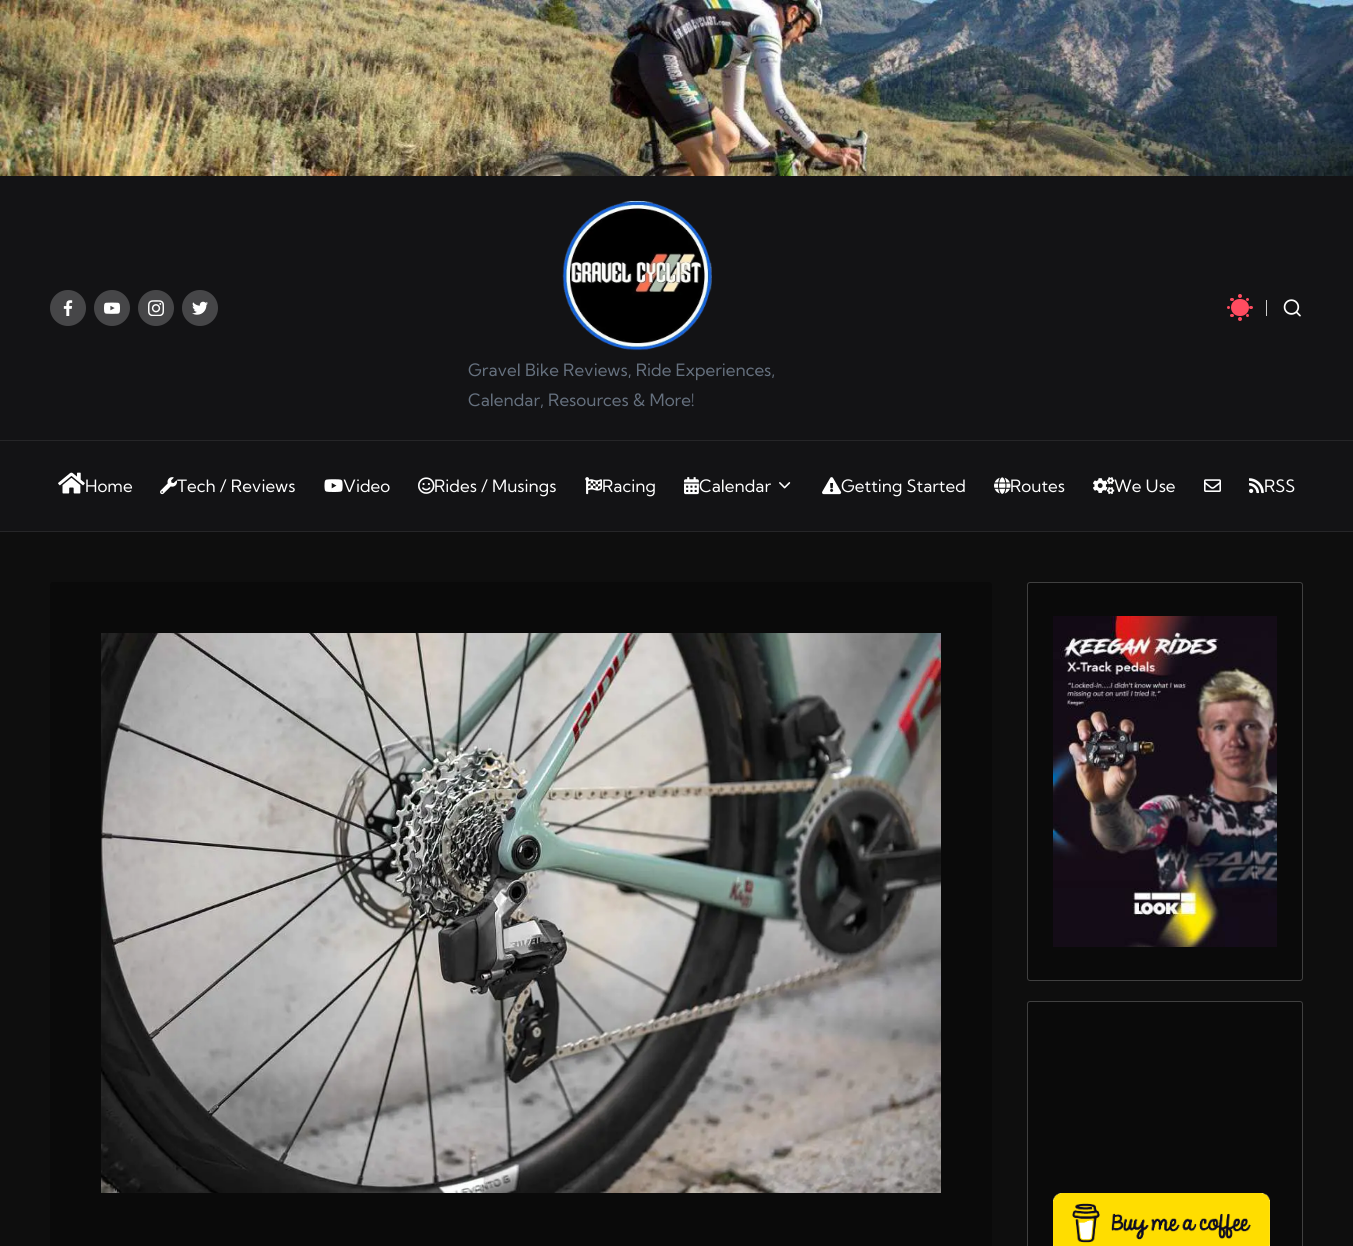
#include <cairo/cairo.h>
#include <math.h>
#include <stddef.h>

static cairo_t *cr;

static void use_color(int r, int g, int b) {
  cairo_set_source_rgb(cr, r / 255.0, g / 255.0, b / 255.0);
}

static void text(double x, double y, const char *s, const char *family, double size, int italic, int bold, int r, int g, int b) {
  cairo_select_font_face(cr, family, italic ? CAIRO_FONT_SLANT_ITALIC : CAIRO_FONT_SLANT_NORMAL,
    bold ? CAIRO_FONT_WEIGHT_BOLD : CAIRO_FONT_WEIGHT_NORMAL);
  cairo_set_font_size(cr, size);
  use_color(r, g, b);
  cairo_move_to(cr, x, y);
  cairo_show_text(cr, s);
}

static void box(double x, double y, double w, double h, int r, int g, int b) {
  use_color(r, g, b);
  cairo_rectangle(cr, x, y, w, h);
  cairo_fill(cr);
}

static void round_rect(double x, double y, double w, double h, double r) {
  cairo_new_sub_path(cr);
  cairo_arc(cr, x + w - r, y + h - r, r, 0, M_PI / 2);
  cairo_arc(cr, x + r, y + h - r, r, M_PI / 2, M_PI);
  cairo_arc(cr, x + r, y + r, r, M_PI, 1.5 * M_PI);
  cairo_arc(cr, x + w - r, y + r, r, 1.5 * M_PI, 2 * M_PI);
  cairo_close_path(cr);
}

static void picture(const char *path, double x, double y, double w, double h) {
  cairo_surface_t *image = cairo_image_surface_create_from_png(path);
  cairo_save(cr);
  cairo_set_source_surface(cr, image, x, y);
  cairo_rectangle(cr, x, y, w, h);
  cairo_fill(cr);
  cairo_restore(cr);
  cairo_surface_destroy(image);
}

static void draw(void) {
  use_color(14, 14, 14);
  cairo_paint(cr);
  picture("img_01.png", 0, 0, 1353, 176);
  box(0, 176, 1353, 264, 19, 19, 21);
  use_color(70, 70, 72);
  cairo_arc(cr, 68, 308, 18, 0, 2 * M_PI);
  cairo_fill(cr);
  picture("img_02.png", 63, 300, 10, 16);
  cairo_arc(cr, 112, 308, 18, 0, 2 * M_PI);
  cairo_fill(cr);
  picture("img_03.png", 104, 302, 16, 12);
  cairo_arc(cr, 156, 308, 18, 0, 2 * M_PI);
  cairo_fill(cr);
  picture("img_04.png", 148, 300, 16, 16);
  cairo_arc(cr, 200, 308, 18, 0, 2 * M_PI);
  cairo_fill(cr);
  picture("img_05.png", 192, 301, 16, 14);
  use_color(255, 76, 96);
  cairo_arc(cr, 1247.5, 299.5, 1.5, 0, 2 * M_PI);
  cairo_fill(cr);
  round_rect(1230, 314, 4, 3, 1.5);
  cairo_fill(cr);
  cairo_arc(cr, 1247.5, 315.5, 1.5, 0, 2 * M_PI);
  cairo_fill(cr);
  round_rect(1230, 298, 4, 3, 1.5);
  cairo_fill(cr);
  cairo_arc(cr, 1240, 319, 2, 0, 2 * M_PI);
  cairo_fill(cr);
  cairo_arc(cr, 1240, 296, 2, 0, 2 * M_PI);
  cairo_fill(cr);
  round_rect(1249, 306, 4, 3, 1.5);
  cairo_fill(cr);
  cairo_arc(cr, 1228.5, 307.5, 1.5, 0, 2 * M_PI);
  cairo_fill(cr);
  round_rect(1231, 299, 18, 17, 8.5);
  cairo_fill(cr);
  box(1266, 300, 1, 16, 204, 204, 204);
  picture("img_06.png", 1283, 299, 18, 18);
  picture("img_07.png", 562, 201, 150, 150);
  box(0, 441, 1353, 90, 19, 19, 21);
  box(0, 440, 1353, 1, 38, 38, 40);
  box(0, 531, 1353, 1, 38, 38, 40);
  picture("img_08.png", 58, 472, 27, 22);
  picture("img_09.png", 160, 477, 17, 18);
  picture("img_10.png", 324, 479, 19, 13);
  picture("img_11.png", 418, 477, 17, 17);
  picture("img_12.png", 585, 477, 17, 18);
  picture("img_13.png", 684, 477, 15, 18);
  picture("img_14.png", 779, 482, 12, 7);
  picture("img_15.png", 822, 477, 20, 18);
  picture("img_16.png", 994, 477, 17, 17);
  picture("img_17.png", 1093, 477, 22, 18);
  picture("img_18.png", 1204, 479, 17, 13);
  picture("img_19.png", 1249, 478, 15, 16);
  use_color(10, 10, 10);
  round_rect(50, 582, 942, 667, 3);
  cairo_fill(cr);
  picture("img_20.png", 101, 633, 840, 560);
  round_rect(1027.5, 582.5, 275, 398, 2.5);
  cairo_fill_preserve(cr);
  use_color(64, 64, 64);
  cairo_set_line_width(cr, 1);
  cairo_stroke(cr);
  picture("img_21.png", 1053, 616, 224, 331);
  use_color(10, 10, 10);
  round_rect(1027.5, 1001.5, 275, 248, 2.5);
  cairo_fill_preserve(cr);
  use_color(64, 64, 64);
  cairo_stroke(cr);
  picture("img_22.png", 1053, 1193, 217, 53);
  text(468, 376, "Gravel Bike Reviews, Ride Experiences,", "Kumbh Sans", 17, 0, 0, 102, 113, 127);
  text(468, 406, "Calendar, Resources & More!", "Kumbh Sans", 17, 0, 0, 102, 113, 127);
  text(85, 492, "Home", "Kumbh Sans", 17, 0, 0, 255, 255, 255);
  text(177, 492, "Tech / Reviews", "Kumbh Sans", 17, 0, 0, 255, 255, 255);
  text(343, 492, "Video", "Kumbh Sans", 17, 0, 0, 255, 255, 255);
  text(434, 492, "Rides / Musings", "Kumbh Sans", 17, 0, 0, 255, 255, 255);
  text(602, 492, "Racing", "Kumbh Sans", 17, 0, 0, 255, 255, 255);
  text(699, 492, "Calendar", "Kumbh Sans", 17, 0, 0, 255, 255, 255);
  text(841, 492, "Getting Started", "Kumbh Sans", 17, 0, 0, 255, 255, 255);
  text(1010, 492, "Routes", "Kumbh Sans", 17, 0, 0, 255, 255, 255);
  text(1114, 492, "We Use", "Kumbh Sans", 17, 0, 0, 255, 255, 255);
  text(1264, 492, "RSS", "Kumbh Sans", 17, 0, 0, 255, 255, 255);
}

int main(void) {
  cairo_surface_t *surface = cairo_image_surface_create(CAIRO_FORMAT_RGB24, 1353, 1246);
  cr = cairo_create(surface);
  cairo_font_options_t *options = cairo_font_options_create();
  cairo_font_options_set_hint_metrics(options, CAIRO_HINT_METRICS_OFF);
  cairo_font_options_set_hint_style(options, CAIRO_HINT_STYLE_NONE);
  cairo_set_font_options(cr, options);
  cairo_set_miter_limit(cr, 4);
  draw();
  cairo_surface_write_to_png(surface, "out.png");
  cairo_font_options_destroy(options);
  cairo_destroy(cr);
  cairo_surface_destroy(surface);
  return 0;
}
